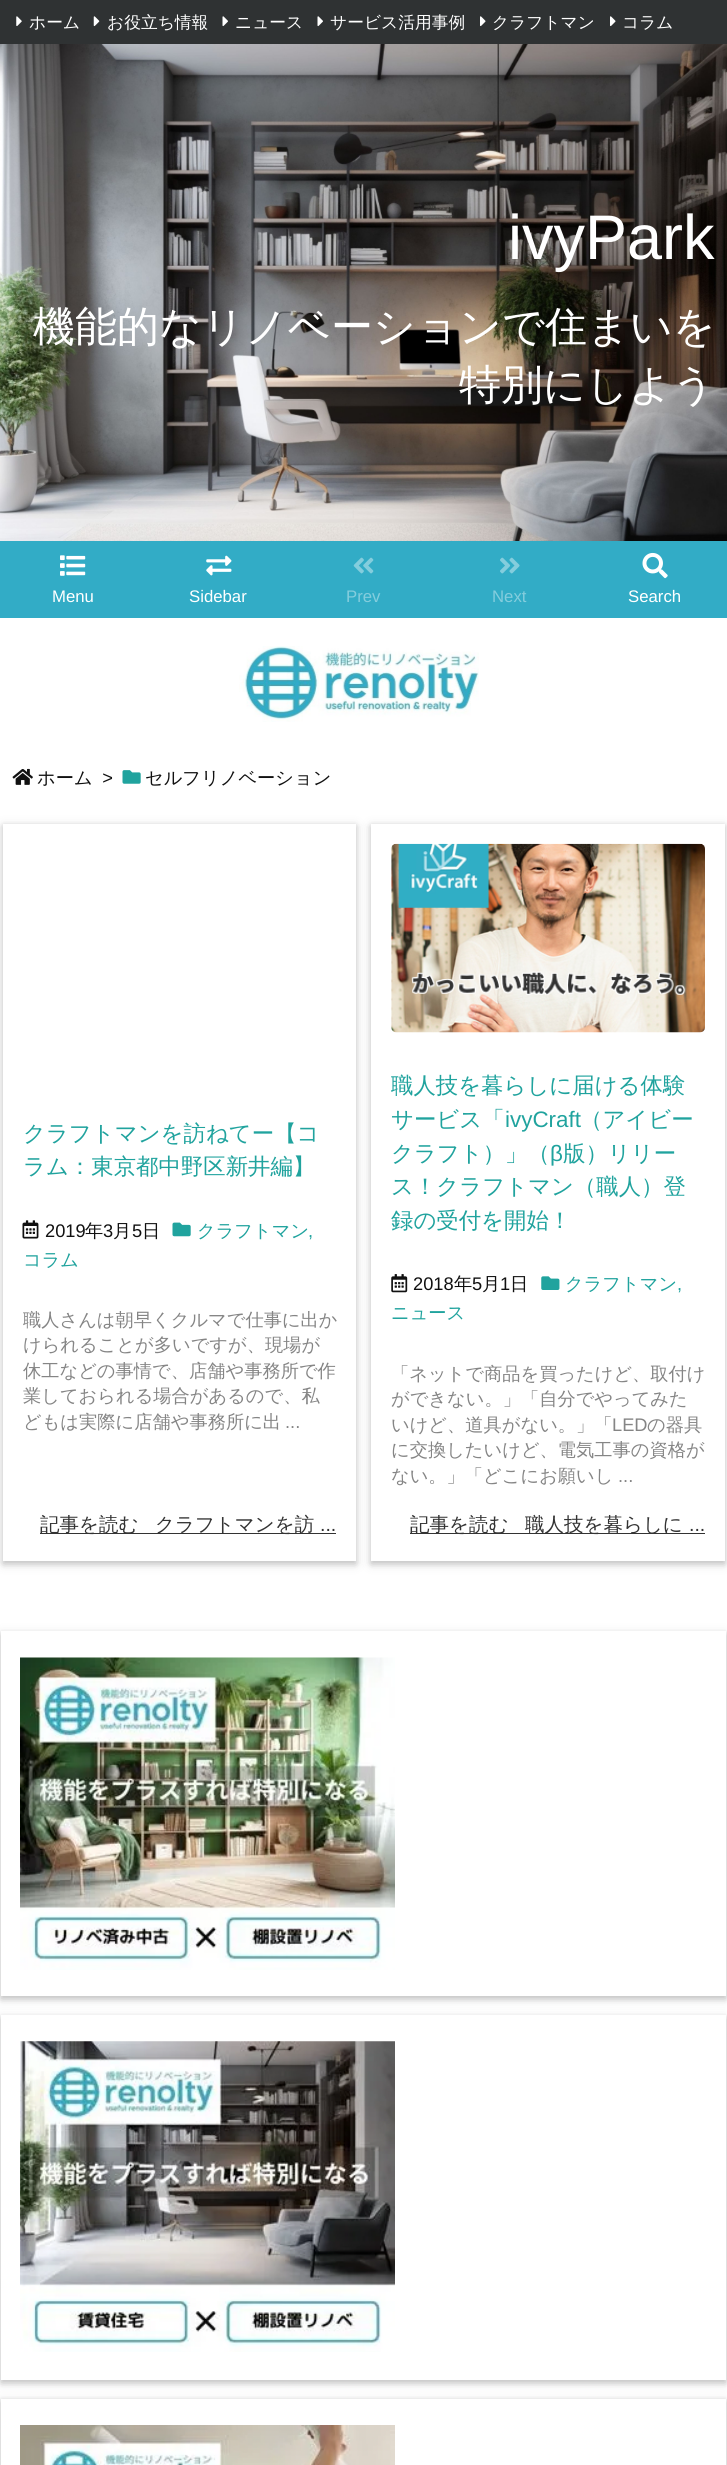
#include <cairo/cairo.h>
#include <math.h>
#include <stddef.h>

static cairo_t *cr;

static void use_color(int r, int g, int b) {
  cairo_set_source_rgb(cr, r / 255.0, g / 255.0, b / 255.0);
}

static void text(double x, double y, const char *s, const char *family, double size, int italic, int bold, int r, int g, int b) {
  cairo_select_font_face(cr, family, italic ? CAIRO_FONT_SLANT_ITALIC : CAIRO_FONT_SLANT_NORMAL,
    bold ? CAIRO_FONT_WEIGHT_BOLD : CAIRO_FONT_WEIGHT_NORMAL);
  cairo_set_font_size(cr, size);
  use_color(r, g, b);
  cairo_move_to(cr, x, y);
  cairo_show_text(cr, s);
}

static void box(double x, double y, double w, double h, int r, int g, int b) {
  use_color(r, g, b);
  cairo_rectangle(cr, x, y, w, h);
  cairo_fill(cr);
}

static void round_rect(double x, double y, double w, double h, double r) {
  cairo_new_sub_path(cr);
  cairo_arc(cr, x + w - r, y + h - r, r, 0, M_PI / 2);
  cairo_arc(cr, x + r, y + h - r, r, M_PI / 2, M_PI);
  cairo_arc(cr, x + r, y + r, r, M_PI, 1.5 * M_PI);
  cairo_arc(cr, x + w - r, y + r, r, 1.5 * M_PI, 2 * M_PI);
  cairo_close_path(cr);
}

static void shadow(double x, double y, double w, double h, double r, double blur, double alpha) {
  cairo_push_group_with_content(cr, CAIRO_CONTENT_ALPHA);
  cairo_set_operator(cr, CAIRO_OPERATOR_SOURCE);
  for (int i = 15; i >= -15 && fmin(w, h) + blur * i / 3 > 0; i -= 2) {
    double e = blur * i / 6;
    cairo_set_source_rgba(cr, 0, 0, 0, alpha * erfc((i - 1) / 8.5) / 2);
    round_rect(x - e, y - e, w + 2 * e, h + 2 * e, fmax(0, fmin(r + e + blur * .6, fmin(w, h) / 2 + e)));
    cairo_fill(cr);
  }
  cairo_pattern_t *soft = cairo_pop_group(cr);
  cairo_mask(cr, soft);
  cairo_pattern_destroy(soft);
}

static void picture(const char *path, double x, double y, double w, double h) {
  cairo_surface_t *image = cairo_image_surface_create_from_png(path);
  cairo_save(cr);
  cairo_set_source_surface(cr, image, x, y);
  cairo_rectangle(cr, x, y, w, h);
  cairo_fill(cr);
  cairo_restore(cr);
  cairo_surface_destroy(image);
}

static void draw(void) {
  use_color(255, 255, 255);
  cairo_paint(cr);
  picture("img_01.png", 0, 44, 727, 497);
  box(0, 0, 727, 44, 47, 50, 51);
  picture("img_02.png", 16, 16, 6, 10);
  picture("img_03.png", 93, 16, 7, 11);
  picture("img_04.png", 222, 16, 6, 11);
  picture("img_04.png", 317, 16, 6, 11);
  picture("img_05.png", 480, 16, 6, 11);
  picture("img_05.png", 610, 16, 6, 11);
  box(0, 541, 727, 77, 50, 172, 198);
  picture("img_06.png", 60, 555, 26, 21);
  picture("img_07.png", 206, 555, 26, 21);
  picture("img_08.png", 353, 557, 21, 17);
  picture("img_09.png", 500, 557, 20, 17);
  picture("img_10.png", 642, 552, 26, 27);
  picture("img_11.png", 239, 646, 240, 76);
  picture("img_12.png", 12, 768, 21, 17);
  picture("img_13.png", 122, 770, 19, 14);
  cairo_save(cr);
  cairo_set_fill_rule(cr, CAIRO_FILL_RULE_EVEN_ODD);
  cairo_new_path(cr);
  cairo_move_to(cr, 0, 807);
  cairo_line_to(cr, 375, 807);
  cairo_line_to(cr, 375, 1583);
  cairo_line_to(cr, 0, 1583);
  cairo_close_path(cr);
  cairo_move_to(cr, 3, 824);
  cairo_line_to(cr, 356, 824);
  cairo_line_to(cr, 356, 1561);
  cairo_line_to(cr, 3, 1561);
  cairo_close_path(cr);
  cairo_clip(cr);
  use_color(0, 0, 0);
  shadow(3, 826, 353, 738, 0, 6, 0.12);
  cairo_restore(cr);
  cairo_save(cr);
  cairo_set_fill_rule(cr, CAIRO_FILL_RULE_EVEN_ODD);
  cairo_new_path(cr);
  cairo_move_to(cr, 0, 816);
  cairo_line_to(cr, 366, 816);
  cairo_line_to(cr, 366, 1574);
  cairo_line_to(cr, 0, 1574);
  cairo_close_path(cr);
  cairo_move_to(cr, 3, 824);
  cairo_line_to(cr, 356, 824);
  cairo_line_to(cr, 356, 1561);
  cairo_line_to(cr, 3, 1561);
  cairo_close_path(cr);
  cairo_clip(cr);
  use_color(0, 0, 0);
  shadow(3, 826, 353, 738, 0, 3, 0.16);
  cairo_restore(cr);
  picture("img_14.png", 22, 1220, 17, 19);
  picture("img_15.png", 172, 1222, 19, 15);
  box(40, 1533, 296, 1, 51, 51, 51);
  use_color(0, 0, 0);
  shadow(371, 826, 354, 738, 0, 6, 0.12);
  shadow(371, 826, 354, 738, 0, 3, 0.16);
  box(371, 824, 354, 737, 255, 255, 255);
  picture("img_16.png", 391, 843, 314, 190);
  picture("img_17.png", 391, 1274, 17, 19);
  picture("img_18.png", 541, 1276, 19, 14);
  box(410, 1533, 295, 1, 51, 51, 51);
  use_color(0, 0, 0);
  shadow(1, 1634, 725, 365, 0, 6, 0.12);
  shadow(1, 1634, 725, 365, 0, 3, 0.16);
  box(1, 1631, 725, 365, 255, 255, 255);
  picture("img_19.png", 20, 1657, 375, 313);
  use_color(0, 0, 0);
  shadow(1, 2018, 725, 365, 0, 6, 0.12);
  shadow(1, 2018, 725, 365, 0, 3, 0.16);
  box(1, 2015, 725, 365, 255, 255, 255);
  picture("img_20.png", 20, 2041, 375, 311);
  use_color(0, 0, 0);
  shadow(1, 2401, 725, 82, 0, 6, 0.12);
  shadow(1, 2401, 725, 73, 0, 3, 0.16);
  box(1, 2399, 725, 66, 255, 255, 255);
  picture("img_21.png", 20, 2425, 375, 40);
  text(29, 28, "ホーム", "WenQuanYi Zen Hei Medium", 16.75, 0, 0, 255, 255, 255);
  text(107, 28, "お役立ち情報", "WenQuanYi Zen Hei Medium", 16.75, 0, 0, 255, 255, 255);
  text(235, 28, "ニュース", "WenQuanYi Zen Hei Medium", 16.75, 0, 0, 255, 255, 255);
  text(330, 28, "サービス活用事例", "WenQuanYi Zen Hei Medium", 16.75, 0, 0, 255, 255, 255);
  text(492, 28, "クラフトマン", "WenQuanYi Zen Hei Medium", 16.75, 0, 0, 255, 255, 255);
  text(622, 28, "コラム", "WenQuanYi Zen Hei Medium", 16.75, 0, 0, 255, 255, 255);
  text(52, 602, "Menu", "Liberation Sans", 16.75, 0, 0, 255, 255, 255);
  text(189, 602, "Sidebar", "Liberation Sans", 16.75, 0, 0, 255, 255, 255);
  text(346, 602, "Prev", "Liberation Sans", 16.75, 0, 0, 132, 205, 221);
  text(492, 602, "Next", "Liberation Sans", 16.75, 0, 0, 132, 205, 221);
  text(628, 602, "Search", "Liberation Sans", 16.75, 0, 0, 255, 255, 255);
  text(508, 259, "ivyPark", "Liberation Sans", 63, 0, 0, 255, 255, 255);
  text(33, 341, "機能的なリノベーションで住まいを", "WenQuanYi Zen Hei Medium", 42, 0, 0, 255, 255, 255);
  text(459, 399, "特別にしよう", "WenQuanYi Zen Hei Medium", 42, 0, 0, 255, 255, 255);
  text(37, 784, "ホーム", "WenQuanYi Zen Hei Medium", 18.25, 0, 0, 17, 17, 17);
  text(102, 784, ">", "Liberation Sans", 18.25, 1, 0, 17, 17, 17);
  text(145, 784, "セルフリノベーション", "WenQuanYi Zen Hei Medium", 18.25, 0, 0, 17, 17, 17);
  text(23, 1141, "クラフトマンを訪ねてー【コ", "WenQuanYi Zen Hei Medium", 22.4, 0, 0, 32, 163, 158);
  text(23, 1174, "ラム：東京都中野区新井編】", "WenQuanYi Zen Hei Medium", 22.4, 0, 0, 32, 163, 158);
  text(45, 1237, "2019", "Liberation Sans", 18.25, 0, 0, 17, 17, 17);
  text(85, 1237, "年", "WenQuanYi Zen Hei Medium", 18.25, 0, 0, 17, 17, 17);
  text(103, 1237, "3", "Liberation Sans", 18.25, 0, 0, 17, 17, 17);
  text(113, 1237, "月", "WenQuanYi Zen Hei Medium", 18.25, 0, 0, 17, 17, 17);
  text(132, 1237, "5", "Liberation Sans", 18.25, 0, 0, 17, 17, 17);
  text(142, 1237, "日", "WenQuanYi Zen Hei Medium", 18.25, 0, 0, 17, 17, 17);
  text(197, 1237, "クラフトマン", "WenQuanYi Zen Hei Medium", 18.25, 0, 0, 32, 163, 158);
  text(308, 1237, ",", "Liberation Sans", 18.25, 0, 0, 32, 163, 158);
  text(23, 1266, "コラム", "WenQuanYi Zen Hei Medium", 18.25, 0, 0, 32, 163, 158);
  text(23, 1326, "職人さんは朝早くクルマで仕事に出か", "WenQuanYi Zen Hei Medium", 18.25, 0, 0, 133, 133, 133);
  text(23, 1351, "けられることが多いですが、現場が", "WenQuanYi Zen Hei Medium", 18.25, 0, 0, 133, 133, 133);
  text(23, 1377, "休工などの事情で、店舗や事務所で作", "WenQuanYi Zen Hei Medium", 18.25, 0, 0, 133, 133, 133);
  text(23, 1402, "業しておられる場合があるので、私", "WenQuanYi Zen Hei Medium", 18.25, 0, 0, 133, 133, 133);
  text(23, 1428, "どもは実際に店舗や事務所に出", "WenQuanYi Zen Hei Medium", 18.25, 0, 0, 133, 133, 133);
  text(285, 1428, "...", "Liberation Sans", 18.25, 0, 0, 133, 133, 133);
  text(40, 1531, "記事を読む", "WenQuanYi Zen Hei Medium", 19.5, 0, 0, 51, 51, 51);
  text(155, 1531, "クラフトマンを訪", "WenQuanYi Zen Hei Medium", 19.5, 0, 0, 51, 51, 51);
  text(320, 1531, "...", "Liberation Sans", 19.5, 0, 0, 51, 51, 51);
  text(391, 1093, "職人技を暮らしに届ける体験", "WenQuanYi Zen Hei Medium", 22.4, 0, 0, 32, 163, 158);
  text(391, 1127, "サービス「", "WenQuanYi Zen Hei Medium", 22.4, 0, 0, 32, 163, 158);
  text(505, 1127, "ivyCraft", "Liberation Sans", 22.4, 0, 0, 32, 163, 158);
  text(580, 1127, "（アイビー", "WenQuanYi Zen Hei Medium", 22.4, 0, 0, 32, 163, 158);
  text(391, 1161, "クラフト）」（", "WenQuanYi Zen Hei Medium", 22.4, 0, 0, 32, 163, 158);
  text(550, 1161, "β", "Liberation Sans", 22.4, 0, 0, 32, 163, 158);
  text(563, 1161, "版）リリー", "WenQuanYi Zen Hei Medium", 22.4, 0, 0, 32, 163, 158);
  text(391, 1194, "ス！クラフトマン（職人）登", "WenQuanYi Zen Hei Medium", 22.4, 0, 0, 32, 163, 158);
  text(391, 1228, "録の受付を開始！", "WenQuanYi Zen Hei Medium", 22.4, 0, 0, 32, 163, 158);
  text(413, 1290, "2018", "Liberation Sans", 18.25, 0, 0, 17, 17, 17);
  text(454, 1290, "年", "WenQuanYi Zen Hei Medium", 18.25, 0, 0, 17, 17, 17);
  text(472, 1290, "5", "Liberation Sans", 18.25, 0, 0, 17, 17, 17);
  text(482, 1290, "月", "WenQuanYi Zen Hei Medium", 18.25, 0, 0, 17, 17, 17);
  text(500, 1290, "1", "Liberation Sans", 18.25, 0, 0, 17, 17, 17);
  text(510, 1290, "日", "WenQuanYi Zen Hei Medium", 18.25, 0, 0, 17, 17, 17);
  text(565, 1290, "クラフトマン", "WenQuanYi Zen Hei Medium", 18.25, 0, 0, 32, 163, 158);
  text(677, 1290, ",", "Liberation Sans", 18.25, 0, 0, 32, 163, 158);
  text(391, 1319, "ニュース", "WenQuanYi Zen Hei Medium", 18.25, 0, 0, 32, 163, 158);
  text(391, 1380, "「ネットで商品を買ったけど、取付け", "WenQuanYi Zen Hei Medium", 18.25, 0, 0, 133, 133, 133);
  text(391, 1405, "ができない。」「自分でやってみた", "WenQuanYi Zen Hei Medium", 18.25, 0, 0, 133, 133, 133);
  text(391, 1431, "いけど、道具がない。」「", "WenQuanYi Zen Hei Medium", 18.25, 0, 0, 133, 133, 133);
  text(612, 1431, "LED", "Liberation Sans", 18.25, 0, 0, 133, 133, 133);
  text(647, 1431, "の器具", "WenQuanYi Zen Hei Medium", 18.25, 0, 0, 133, 133, 133);
  text(391, 1456, "に交換したいけど、電気工事の資格が", "WenQuanYi Zen Hei Medium", 18.25, 0, 0, 133, 133, 133);
  text(391, 1482, "ない。」「どこにお願いし", "WenQuanYi Zen Hei Medium", 18.25, 0, 0, 133, 133, 133);
  text(618, 1482, "...", "Liberation Sans", 18.25, 0, 0, 133, 133, 133);
  text(410, 1531, "記事を読む", "WenQuanYi Zen Hei Medium", 19.5, 0, 0, 51, 51, 51);
  text(525, 1531, "職人技を暮らしに", "WenQuanYi Zen Hei Medium", 19.5, 0, 0, 51, 51, 51);
  text(689, 1531, "...", "Liberation Sans", 19.5, 0, 0, 51, 51, 51);
}

int main(void) {
  cairo_surface_t *surface = cairo_image_surface_create(CAIRO_FORMAT_RGB24, 727, 2465);
  cr = cairo_create(surface);
  cairo_font_options_t *options = cairo_font_options_create();
  cairo_font_options_set_hint_metrics(options, CAIRO_HINT_METRICS_OFF);
  cairo_font_options_set_hint_style(options, CAIRO_HINT_STYLE_NONE);
  cairo_set_font_options(cr, options);
  cairo_set_miter_limit(cr, 4);
  draw();
  cairo_surface_write_to_png(surface, "out.png");
  cairo_font_options_destroy(options);
  cairo_destroy(cr);
  cairo_surface_destroy(surface);
  return 0;
}
